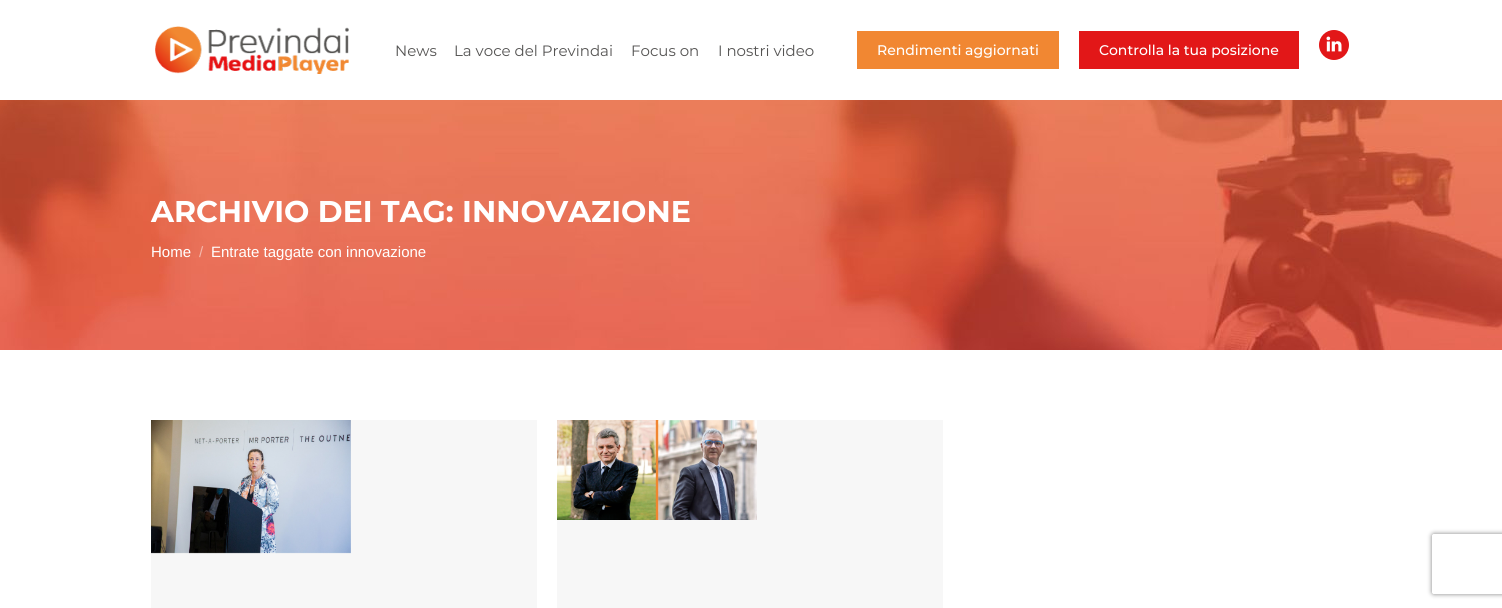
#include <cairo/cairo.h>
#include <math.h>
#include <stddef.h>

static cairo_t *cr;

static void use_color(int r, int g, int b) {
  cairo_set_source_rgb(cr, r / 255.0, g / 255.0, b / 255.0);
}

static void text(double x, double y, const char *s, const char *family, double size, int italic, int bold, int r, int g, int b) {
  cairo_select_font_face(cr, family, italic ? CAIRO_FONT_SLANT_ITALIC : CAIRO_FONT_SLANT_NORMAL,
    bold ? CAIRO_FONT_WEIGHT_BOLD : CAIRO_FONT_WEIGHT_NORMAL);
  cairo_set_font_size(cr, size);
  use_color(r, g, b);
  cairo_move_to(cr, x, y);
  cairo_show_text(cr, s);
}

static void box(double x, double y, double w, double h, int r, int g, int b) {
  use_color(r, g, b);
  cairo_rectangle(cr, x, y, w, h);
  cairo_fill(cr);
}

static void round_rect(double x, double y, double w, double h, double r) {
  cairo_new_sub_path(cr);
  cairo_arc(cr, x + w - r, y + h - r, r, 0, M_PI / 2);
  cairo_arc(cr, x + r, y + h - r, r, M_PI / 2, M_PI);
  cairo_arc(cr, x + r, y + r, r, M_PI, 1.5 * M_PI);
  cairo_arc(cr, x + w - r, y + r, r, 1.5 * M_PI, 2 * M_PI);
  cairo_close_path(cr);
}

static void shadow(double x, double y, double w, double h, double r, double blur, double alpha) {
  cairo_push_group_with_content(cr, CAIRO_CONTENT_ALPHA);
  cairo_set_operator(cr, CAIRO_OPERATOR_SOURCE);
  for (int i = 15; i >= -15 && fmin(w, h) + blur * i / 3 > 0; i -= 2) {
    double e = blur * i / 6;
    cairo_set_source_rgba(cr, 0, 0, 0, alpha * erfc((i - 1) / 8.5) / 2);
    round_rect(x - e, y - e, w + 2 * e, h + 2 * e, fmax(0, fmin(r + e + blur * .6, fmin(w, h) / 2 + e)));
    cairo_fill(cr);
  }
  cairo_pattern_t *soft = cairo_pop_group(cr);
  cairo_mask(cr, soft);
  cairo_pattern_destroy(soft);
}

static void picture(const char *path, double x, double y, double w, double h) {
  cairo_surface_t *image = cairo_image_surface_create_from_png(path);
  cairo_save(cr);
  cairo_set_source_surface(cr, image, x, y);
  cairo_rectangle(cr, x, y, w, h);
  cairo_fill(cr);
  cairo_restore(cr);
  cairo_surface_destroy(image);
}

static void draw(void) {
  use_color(255, 255, 255);
  cairo_paint(cr);
  picture("img_01.png", 155, 26, 194, 48);
  box(857, 31, 202, 38, 241, 135, 50);
  box(1079, 31, 220, 38, 226, 23, 24);
  cairo_arc(cr, 1334, 45, 15, 0, 2 * M_PI);
  cairo_fill(cr);
  picture("img_02.png", 1326, 36, 16, 16);
  picture("img_03.png", 0, 100, 1502, 250);
  box(151, 420, 386, 188, 247, 247, 247);
  picture("img_04.png", 151, 420, 200, 134);
  box(557, 420, 386, 188, 247, 247, 247);
  picture("img_05.png", 557, 420, 200, 100);
  cairo_save(cr);
  cairo_set_fill_rule(cr, CAIRO_FILL_RULE_EVEN_ODD);
  cairo_new_path(cr);
  cairo_move_to(cr, 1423, 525);
  cairo_line_to(cr, 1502, 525);
  cairo_line_to(cr, 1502, 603);
  cairo_line_to(cr, 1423, 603);
  cairo_close_path(cr);
  cairo_move_to(cr, 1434, 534);
  cairo_line_to(cr, 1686, 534);
  cairo_curve_to(cr, 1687, 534, 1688, 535, 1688, 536);
  cairo_line_to(cr, 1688, 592);
  cairo_curve_to(cr, 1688, 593, 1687, 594, 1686, 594);
  cairo_line_to(cr, 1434, 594);
  cairo_curve_to(cr, 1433, 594, 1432, 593, 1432, 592);
  cairo_line_to(cr, 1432, 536);
  cairo_curve_to(cr, 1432, 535, 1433, 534, 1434, 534);
  cairo_close_path(cr);
  cairo_clip(cr);
  use_color(128, 128, 128);
  shadow(1432, 534, 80, 60, 2, 2.5, 1);
  cairo_restore(cr);
  text(395, 56, "News", "Montserrat", 15, 0, 0, 85, 84, 83);
  text(454, 56, "La voce del Previndai", "Montserrat", 15, 0, 0, 85, 84, 83);
  text(631, 56, "Focus on", "Montserrat", 15, 0, 0, 85, 84, 83);
  text(718, 56, "I nostri video", "Montserrat", 15, 0, 0, 85, 84, 83);
  text(877, 55, "Rendimenti aggiornati", "Montserrat Medium", 14, 0, 0, 255, 255, 255);
  text(1099, 55, "Controlla la tua posizione", "Montserrat Medium", 14, 0, 0, 255, 255, 255);
  text(151, 222, "ARCHIVIO DEI TAG: INNOVAZIONE", "Montserrat", 30, 0, 1, 255, 255, 255);
  text(151, 257, "Home", "Liberation Sans", 15, 0, 0, 255, 255, 255);
  text(199, 257, "/", "Liberation Sans", 15, 0, 0, 244, 184, 172);
  text(211, 257, "Entrate taggate con innovazione", "Liberation Sans", 15, 0, 0, 255, 255, 255);
}

int main(void) {
  cairo_surface_t *surface = cairo_image_surface_create(CAIRO_FORMAT_RGB24, 1502, 608);
  cr = cairo_create(surface);
  cairo_font_options_t *options = cairo_font_options_create();
  cairo_font_options_set_hint_metrics(options, CAIRO_HINT_METRICS_OFF);
  cairo_font_options_set_hint_style(options, CAIRO_HINT_STYLE_NONE);
  cairo_set_font_options(cr, options);
  cairo_set_miter_limit(cr, 4);
  draw();
  cairo_surface_write_to_png(surface, "out.png");
  cairo_font_options_destroy(options);
  cairo_destroy(cr);
  cairo_surface_destroy(surface);
  return 0;
}
